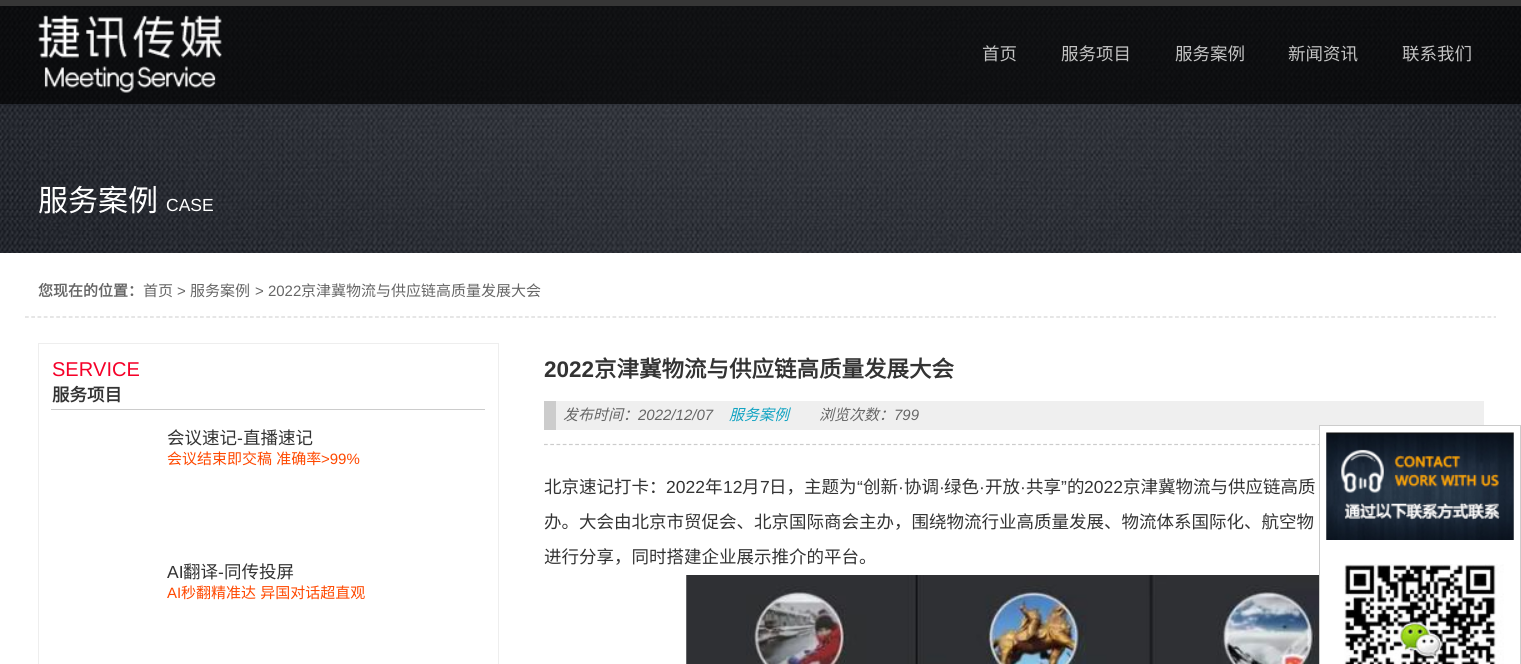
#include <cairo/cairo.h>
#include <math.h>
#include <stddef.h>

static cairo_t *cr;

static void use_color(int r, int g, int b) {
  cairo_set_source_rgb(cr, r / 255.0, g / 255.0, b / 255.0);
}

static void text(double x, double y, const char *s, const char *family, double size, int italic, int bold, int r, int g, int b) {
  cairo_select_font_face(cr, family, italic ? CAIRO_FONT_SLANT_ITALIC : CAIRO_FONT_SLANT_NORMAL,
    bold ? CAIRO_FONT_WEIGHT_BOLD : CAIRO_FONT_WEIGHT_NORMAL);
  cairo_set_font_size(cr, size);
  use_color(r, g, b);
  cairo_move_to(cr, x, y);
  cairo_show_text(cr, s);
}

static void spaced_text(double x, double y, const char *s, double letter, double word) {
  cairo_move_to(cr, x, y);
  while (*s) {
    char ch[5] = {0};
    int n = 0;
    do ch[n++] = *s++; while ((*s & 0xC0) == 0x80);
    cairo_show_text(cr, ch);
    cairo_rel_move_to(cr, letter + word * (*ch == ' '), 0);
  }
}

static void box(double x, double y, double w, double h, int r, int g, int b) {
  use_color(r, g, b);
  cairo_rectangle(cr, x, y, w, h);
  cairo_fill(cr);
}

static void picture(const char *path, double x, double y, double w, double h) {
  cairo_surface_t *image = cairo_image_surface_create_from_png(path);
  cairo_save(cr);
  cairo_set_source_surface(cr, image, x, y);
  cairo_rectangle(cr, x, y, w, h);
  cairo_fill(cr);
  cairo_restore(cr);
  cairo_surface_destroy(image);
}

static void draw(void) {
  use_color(255, 255, 255);
  cairo_paint(cr);
  picture("img_02.png", 0, 6, 1521, 247);
  cairo_set_source_rgba(cr, 0, 0, 0, 0.7);
  cairo_rectangle(cr, 0, 6, 1521, 98);
  cairo_fill(cr);
  box(0, 0, 1521, 6, 54, 54, 54);
  picture("img_01.png", 38, 14, 184, 79);
  cairo_new_path(cr);
  cairo_move_to(cr, 25, 317);
  cairo_line_to(cr, 1496, 317);
  use_color(213, 213, 213);
  cairo_set_line_width(cr, 1.2);
  cairo_set_dash(cr, (double[]){3.75, 2.5}, 2, 0);
  cairo_stroke(cr);
  cairo_rectangle(cr, 38.5, 343.5, 460, 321);
  use_color(238, 238, 238);
  cairo_set_line_width(cr, 1);
  cairo_set_dash(cr, NULL, 0, 0);
  cairo_stroke(cr);
  box(51, 409, 434, 1, 204, 204, 204);
  cairo_new_path(cr);
  cairo_move_to(cr, 544, 444.5);
  cairo_line_to(cr, 1484, 444.5);
  cairo_set_line_width(cr, 1.2);
  cairo_set_dash(cr, (double[]){3.75, 2.49}, 2, 0);
  cairo_stroke(cr);
  box(556, 401, 928, 29, 239, 239, 239);
  box(544, 401, 12, 29, 204, 204, 204);
  picture("img_03.png", 686, 575, 633, 89);
  box(1320, 426, 164, 20, 255, 255, 255);
  cairo_rectangle(cr, 1319.5, 425.5, 201, 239);
  use_color(204, 204, 204);
  cairo_set_line_width(cr, 1);
  cairo_set_dash(cr, NULL, 0, 0);
  cairo_stroke(cr);
  picture("img_04.png", 1326, 432, 188, 108);
  picture("img_05.png", 1344, 564, 160, 100);
  text(982, 60, "首页", "Noto Sans CJK SC", 17.5, 0, 0, 196, 196, 196);
  text(1061, 60, "服务项目", "Noto Sans CJK SC", 17.5, 0, 0, 196, 196, 196);
  text(1175, 60, "服务案例", "Noto Sans CJK SC", 17.5, 0, 0, 196, 196, 196);
  text(1288, 60, "新闻资讯", "Noto Sans CJK SC", 17.5, 0, 0, 196, 196, 196);
  text(1402, 60, "联系我们", "Noto Sans CJK SC", 17.5, 0, 0, 196, 196, 196);
  text(38, 211, "服务案例", "Noto Sans CJK SC", 30, 0, 0, 255, 255, 255);
  text(166, 211, "CASE", "Liberation Sans", 17.5, 0, 0, 255, 255, 255);
  text(38, 296, "您现在的位置：", "Noto Sans CJK SC", 15, 0, 1, 102, 102, 102);
  text(143, 296, "首页", "Noto Sans CJK SC", 15, 0, 0, 102, 102, 102);
  text(177, 296, ">", "Liberation Sans", 15, 0, 0, 102, 102, 102);
  text(190, 296, "服务案例", "Noto Sans CJK SC", 15, 0, 0, 102, 102, 102);
  text(255, 296, "> 2022", "Liberation Sans", 15, 0, 0, 102, 102, 102);
  text(301, 296, "京津冀物流与供应链高质量发展大会", "Noto Sans CJK SC", 15, 0, 0, 102, 102, 102);
  text(52, 376, "SERVICE", "Liberation Sans", 20, 0, 0, 245, 0, 40);
  text(52, 401, "服务项目", "Noto Sans CJK SC", 17.5, 0, 1, 51, 51, 51);
  text(167, 444, "会议速记", "Noto Sans CJK SC", 17.5, 0, 0, 51, 51, 51);
  text(237, 444, "-", "Liberation Sans", 17.5, 0, 0, 51, 51, 51);
  text(243, 444, "直播速记", "Noto Sans CJK SC", 17.5, 0, 0, 51, 51, 51);
  cairo_set_font_size(cr, 15);
  use_color(255, 72, 0);
  spaced_text(167, 464, "会议结束即交稿 准确率", 0, 1);
  text(321, 464, ">99%", "Liberation Sans", 15, 0, 0, 255, 72, 0);
  text(167, 578, "AI", "Liberation Sans", 17.5, 0, 0, 51, 51, 51);
  text(183, 578, "翻译", "Noto Sans CJK SC", 17.5, 0, 0, 51, 51, 51);
  text(218, 578, "-", "Liberation Sans", 17.5, 0, 0, 51, 51, 51);
  text(224, 578, "同传投屏", "Noto Sans CJK SC", 17.5, 0, 0, 51, 51, 51);
  text(167, 598, "AI", "Liberation Sans", 15, 0, 0, 255, 72, 0);
  cairo_select_font_face(cr, "Noto Sans CJK SC", CAIRO_FONT_SLANT_NORMAL, CAIRO_FONT_WEIGHT_NORMAL);
  spaced_text(181, 598, "秒翻精准达 异国对话超直观", 0, 1);
  text(544, 377, "2022", "Liberation Sans", 22.5, 0, 1, 51, 51, 51);
  text(594, 377, "京津冀物流与供应链高质量发展大会", "Noto Sans CJK SC", 22.5, 0, 1, 51, 51, 51);
  text(563, 420, "发布时间：", "Noto Sans CJK SC", 15, 1, 0, 102, 102, 102);
  text(638, 420, "2022/12/07", "Liberation Sans", 15, 1, 0, 102, 102, 102);
  text(729, 420, "服务案例", "Noto Sans CJK SC", 15, 1, 0, 17, 163, 194);
  text(819, 420, "浏览次数：", "Noto Sans CJK SC", 15, 1, 0, 102, 102, 102);
  text(894, 420, "799", "Liberation Sans", 15, 1, 0, 102, 102, 102);
  text(544, 493, "北京速记打卡：", "Noto Sans CJK SC", 17.5, 0, 0, 51, 51, 51);
  text(666, 493, "2022", "Liberation Sans", 17.5, 0, 0, 51, 51, 51);
  text(705, 493, "年", "Noto Sans CJK SC", 17.5, 0, 0, 51, 51, 51);
  text(723, 493, "12", "Liberation Sans", 17.5, 0, 0, 51, 51, 51);
  text(742, 493, "月", "Noto Sans CJK SC", 17.5, 0, 0, 51, 51, 51);
  text(760, 493, "7", "Liberation Sans", 17.5, 0, 0, 51, 51, 51);
  text(769, 493, "日，主题为", "Noto Sans CJK SC", 17.5, 0, 0, 51, 51, 51);
  text(857, 493, "“", "Liberation Sans", 17.5, 0, 0, 51, 51, 51);
  text(863, 493, "创新", "Noto Sans CJK SC", 17.5, 0, 0, 51, 51, 51);
  text(898, 493, "·", "Liberation Sans", 17.5, 0, 0, 51, 51, 51);
  text(904, 493, "协调", "Noto Sans CJK SC", 17.5, 0, 0, 51, 51, 51);
  text(939, 493, "·", "Liberation Sans", 17.5, 0, 0, 51, 51, 51);
  text(944, 493, "绿色", "Noto Sans CJK SC", 17.5, 0, 0, 51, 51, 51);
  text(979, 493, "·", "Liberation Sans", 17.5, 0, 0, 51, 51, 51);
  text(985, 493, "开放", "Noto Sans CJK SC", 17.5, 0, 0, 51, 51, 51);
  text(1020, 493, "·", "Liberation Sans", 17.5, 0, 0, 51, 51, 51);
  text(1026, 493, "共享", "Noto Sans CJK SC", 17.5, 0, 0, 51, 51, 51);
  text(1061, 493, "”", "Liberation Sans", 17.5, 0, 0, 51, 51, 51);
  text(1067, 493, "的", "Noto Sans CJK SC", 17.5, 0, 0, 51, 51, 51);
  text(1084, 493, "2022", "Liberation Sans", 17.5, 0, 0, 51, 51, 51);
  text(1123, 493, "京津冀物流与供应链高质", "Noto Sans CJK SC", 17.5, 0, 0, 51, 51, 51);
  text(544, 528, "办。大会由北京市贸促会、北京国际商会主办，围绕物流行业高质量发展、物流体系国际化、航空物", "Noto Sans CJK SC", 17.5, 0, 0, 51, 51, 51);
  text(544, 563, "进行分享，同时搭建企业展示推介的平台。", "Noto Sans CJK SC", 17.5, 0, 0, 51, 51, 51);
}

int main(void) {
  cairo_surface_t *surface = cairo_image_surface_create(CAIRO_FORMAT_RGB24, 1521, 664);
  cr = cairo_create(surface);
  cairo_font_options_t *options = cairo_font_options_create();
  cairo_font_options_set_hint_metrics(options, CAIRO_HINT_METRICS_OFF);
  cairo_font_options_set_hint_style(options, CAIRO_HINT_STYLE_NONE);
  cairo_set_font_options(cr, options);
  cairo_set_miter_limit(cr, 4);
  draw();
  cairo_surface_write_to_png(surface, "out.png");
  cairo_font_options_destroy(options);
  cairo_destroy(cr);
  cairo_surface_destroy(surface);
  return 0;
}
